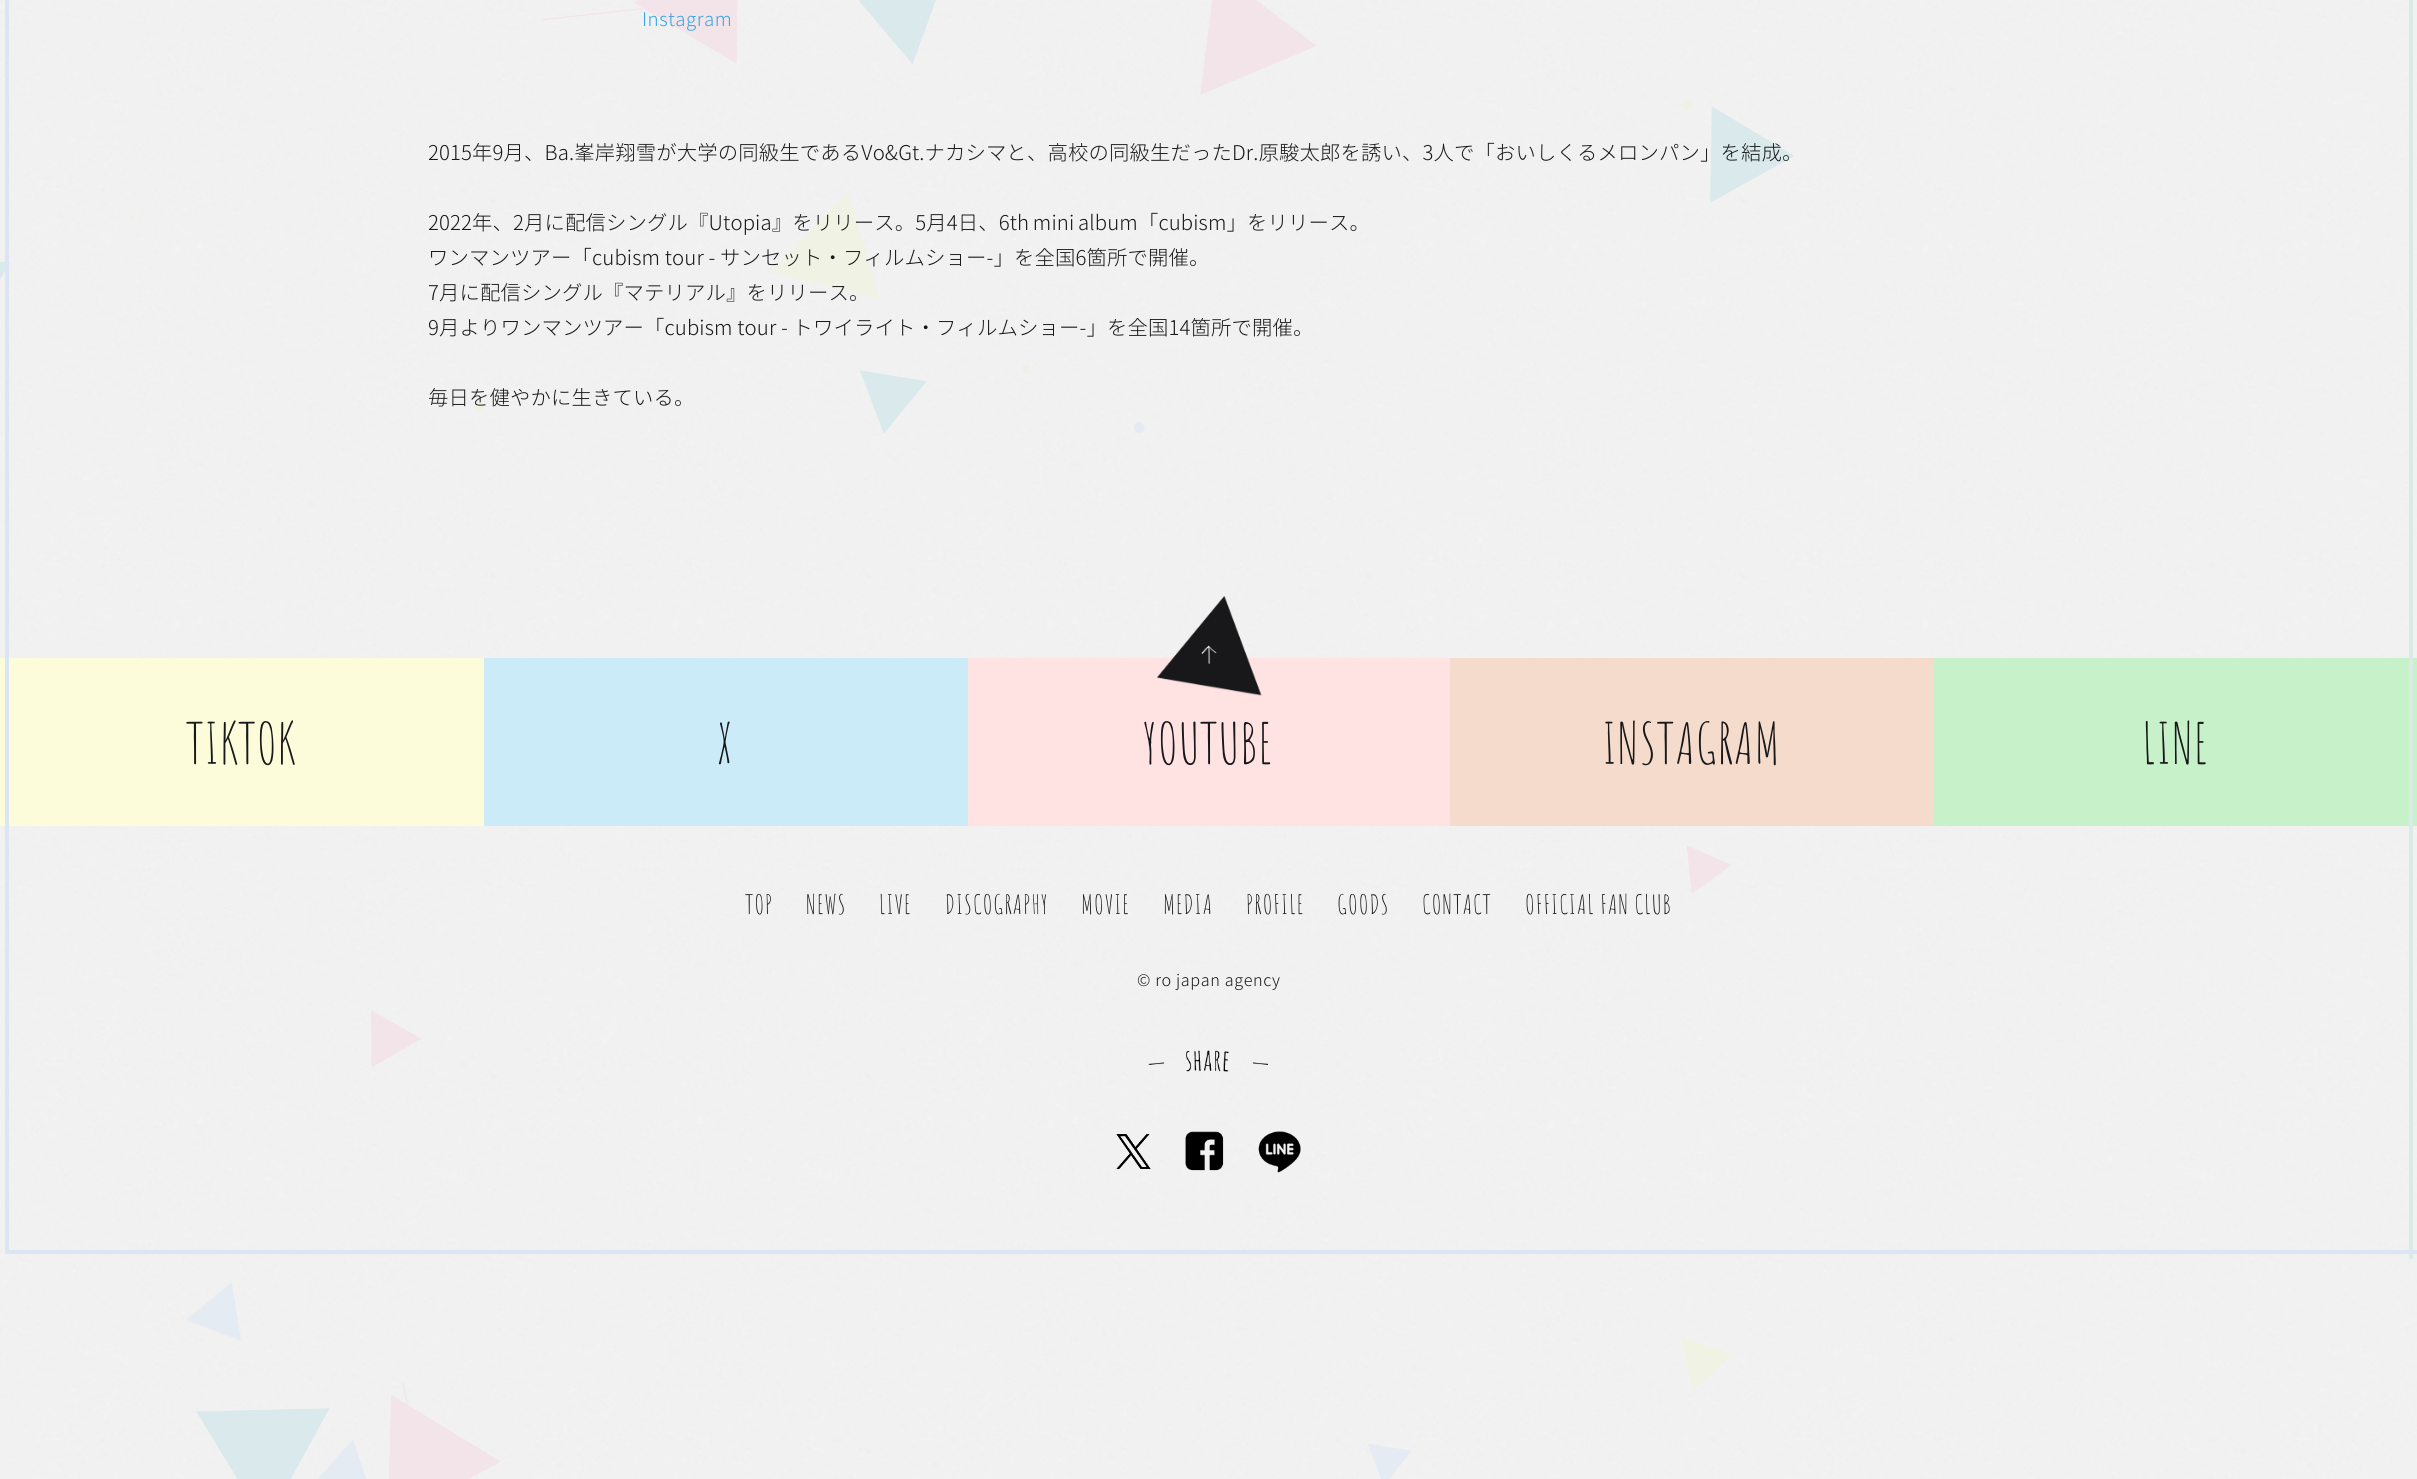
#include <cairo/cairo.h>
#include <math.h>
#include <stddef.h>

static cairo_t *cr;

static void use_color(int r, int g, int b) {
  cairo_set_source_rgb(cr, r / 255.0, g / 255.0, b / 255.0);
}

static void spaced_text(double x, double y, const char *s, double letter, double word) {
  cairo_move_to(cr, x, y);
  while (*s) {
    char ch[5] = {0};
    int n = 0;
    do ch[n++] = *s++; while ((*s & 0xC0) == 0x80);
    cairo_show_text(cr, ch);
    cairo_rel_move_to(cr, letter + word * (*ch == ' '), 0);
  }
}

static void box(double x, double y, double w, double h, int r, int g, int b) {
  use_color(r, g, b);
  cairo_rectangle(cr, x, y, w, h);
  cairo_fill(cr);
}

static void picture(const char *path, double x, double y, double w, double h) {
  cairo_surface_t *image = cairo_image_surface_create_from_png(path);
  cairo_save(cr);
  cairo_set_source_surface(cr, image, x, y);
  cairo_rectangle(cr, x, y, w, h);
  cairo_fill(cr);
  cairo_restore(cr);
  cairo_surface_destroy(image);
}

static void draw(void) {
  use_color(255, 255, 255);
  cairo_paint(cr);
  picture("img_01.png", 0, 0, 2417, 1479);
  picture("img_03.png", 634, 0, 104, 63);
  picture("img_02.png", 541, 8, 103, 13);
  picture("img_04.png", 859, 0, 77, 64);
  picture("img_05.png", 1200, 0, 117, 95);
  picture("img_06.png", 1682, 99, 10, 11);
  picture("img_07.png", 1710, 106, 84, 97);
  box(129, 216, 4, 4, 239, 241, 228);
  picture("img_08.png", 771, 192, 108, 106);
  picture("img_09.png", 0, 262, 10, 18);
  picture("img_10.png", 473, 402, 10, 10);
  picture("img_11.png", 860, 370, 67, 64);
  picture("img_12.png", 1021, 365, 9, 9);
  picture("img_13.png", 1134, 422, 11, 11);
  picture("img_14.png", 1687, 845, 44, 48);
  picture("img_15.png", 844, 982, 4, 4);
  picture("img_16.png", 371, 1010, 50, 57);
  picture("img_17.png", 186, 1283, 55, 58);
  picture("img_18.png", 1681, 1337, 52, 53);
  picture("img_22.png", 389, 1395, 112, 84);
  picture("img_19.png", 403, 1383, 5, 22);
  picture("img_20.png", 196, 1408, 134, 71);
  picture("img_21.png", 318, 1439, 48, 40);
  picture("img_23.png", 1368, 1444, 44, 35);
  box(0, 658, 484, 168, 252, 252, 219);
  box(5, 0, 4, 1254, 218, 230, 243);
  box(1934, 658, 483, 168, 199, 242, 201);
  box(2409, 0, 4, 1259, 218, 235, 229);
  box(5, 1250, 2412, 4, 218, 230, 243);
  box(968, 658, 482, 168, 255, 227, 227);
  picture("img_24.png", 1157, 596, 105, 100);
  picture("img_25.png", 1201, 645, 16, 19);
  box(484, 658, 484, 168, 204, 235, 248);
  box(1450, 658, 484, 168, 244, 219, 203);
  picture("img_26.png", 1148, 1050, 120, 22);
  picture("img_27.png", 1116, 1134, 35, 35);
  picture("img_28.png", 1185, 1131, 39, 40);
  picture("img_29.png", 1258, 1131, 43, 42);
  cairo_select_font_face(cr, "Noto Sans JP Light", CAIRO_FONT_SLANT_NORMAL, CAIRO_FONT_WEIGHT_NORMAL);
  cairo_set_font_size(cr, 18.75);
  use_color(52, 164, 228);
  spaced_text(642, 26, "Instagram", 0.5, 0);
  cairo_set_font_size(cr, 20.38);
  use_color(24, 24, 26);
  spaced_text(428, 160, "2015年9月、Ba.峯岸翔雪が大学の同級生であるVo&Gt.ナカシマと、高校の同級生だったDr.原駿太郎を誘い、3人で「おいしくるメロンパン」を結成。", 0.12, 0);
  spaced_text(428, 230, "2022年、2月に配信シングル『Utopia』をリリース。5月4日、6th mini album「cubism」をリリース。", 0.12, -1);
  spaced_text(428, 265, "ワンマンツアー「cubism tour - サンセット・フィルムショー-」を全国6箇所で開催。", 0.12, 0);
  spaced_text(428, 300, "7月に配信シングル『マテリアル』をリリース。", 0.12, 0);
  spaced_text(428, 335, "9月よりワンマンツアー「cubism tour - トワイライト・フィルムショー-」を全国14箇所で開催。", 0.12, 0);
  spaced_text(428, 405, "毎日を健やかに生きている。", 0.12, 0);
  cairo_select_font_face(cr, "Amatic SC", CAIRO_FONT_SLANT_NORMAL, CAIRO_FONT_WEIGHT_NORMAL);
  cairo_set_font_size(cr, 56);
  spaced_text(186, 764, "TIKTOK", 0.5, 0);
  spaced_text(717, 764, "X", 0.5, 0);
  spaced_text(1143, 764, "YOUTUBE", 0.5, 0);
  spaced_text(1602, 764, "INSTAGRAM", 0.5, 0);
  spaced_text(2142, 764, "LINE", 0.5, 0);
  cairo_set_font_size(cr, 26.25);
  spaced_text(745, 914, "TOP", 1, 0);
  spaced_text(806, 914, "NEWS", 1, 0);
  spaced_text(879, 914, "LIVE", 1, 0);
  spaced_text(945, 914, "DISCOGRAPHY", 1, 0);
  spaced_text(1081, 914, "MOVIE", 1, 0);
  spaced_text(1163, 914, "MEDIA", 1, 0);
  spaced_text(1246, 914, "PROFILE", 1, 0);
  spaced_text(1337, 914, "GOODS", 1, 0);
  spaced_text(1422, 914, "CONTACT", 1, 0);
  spaced_text(1525, 914, "OFFICIAL FAN CLUB", 1, 0);
  cairo_select_font_face(cr, "Noto Sans JP Light", CAIRO_FONT_SLANT_NORMAL, CAIRO_FONT_WEIGHT_NORMAL);
  cairo_set_font_size(cr, 16.25);
  spaced_text(1137, 986, "© ro japan agency", 0.6, 0);
}

int main(void) {
  cairo_surface_t *surface = cairo_image_surface_create(CAIRO_FORMAT_RGB24, 2417, 1479);
  cr = cairo_create(surface);
  cairo_font_options_t *options = cairo_font_options_create();
  cairo_font_options_set_hint_metrics(options, CAIRO_HINT_METRICS_OFF);
  cairo_font_options_set_hint_style(options, CAIRO_HINT_STYLE_NONE);
  cairo_set_font_options(cr, options);
  cairo_set_miter_limit(cr, 4);
  draw();
  cairo_surface_write_to_png(surface, "out.png");
  cairo_font_options_destroy(options);
  cairo_destroy(cr);
  cairo_surface_destroy(surface);
  return 0;
}
